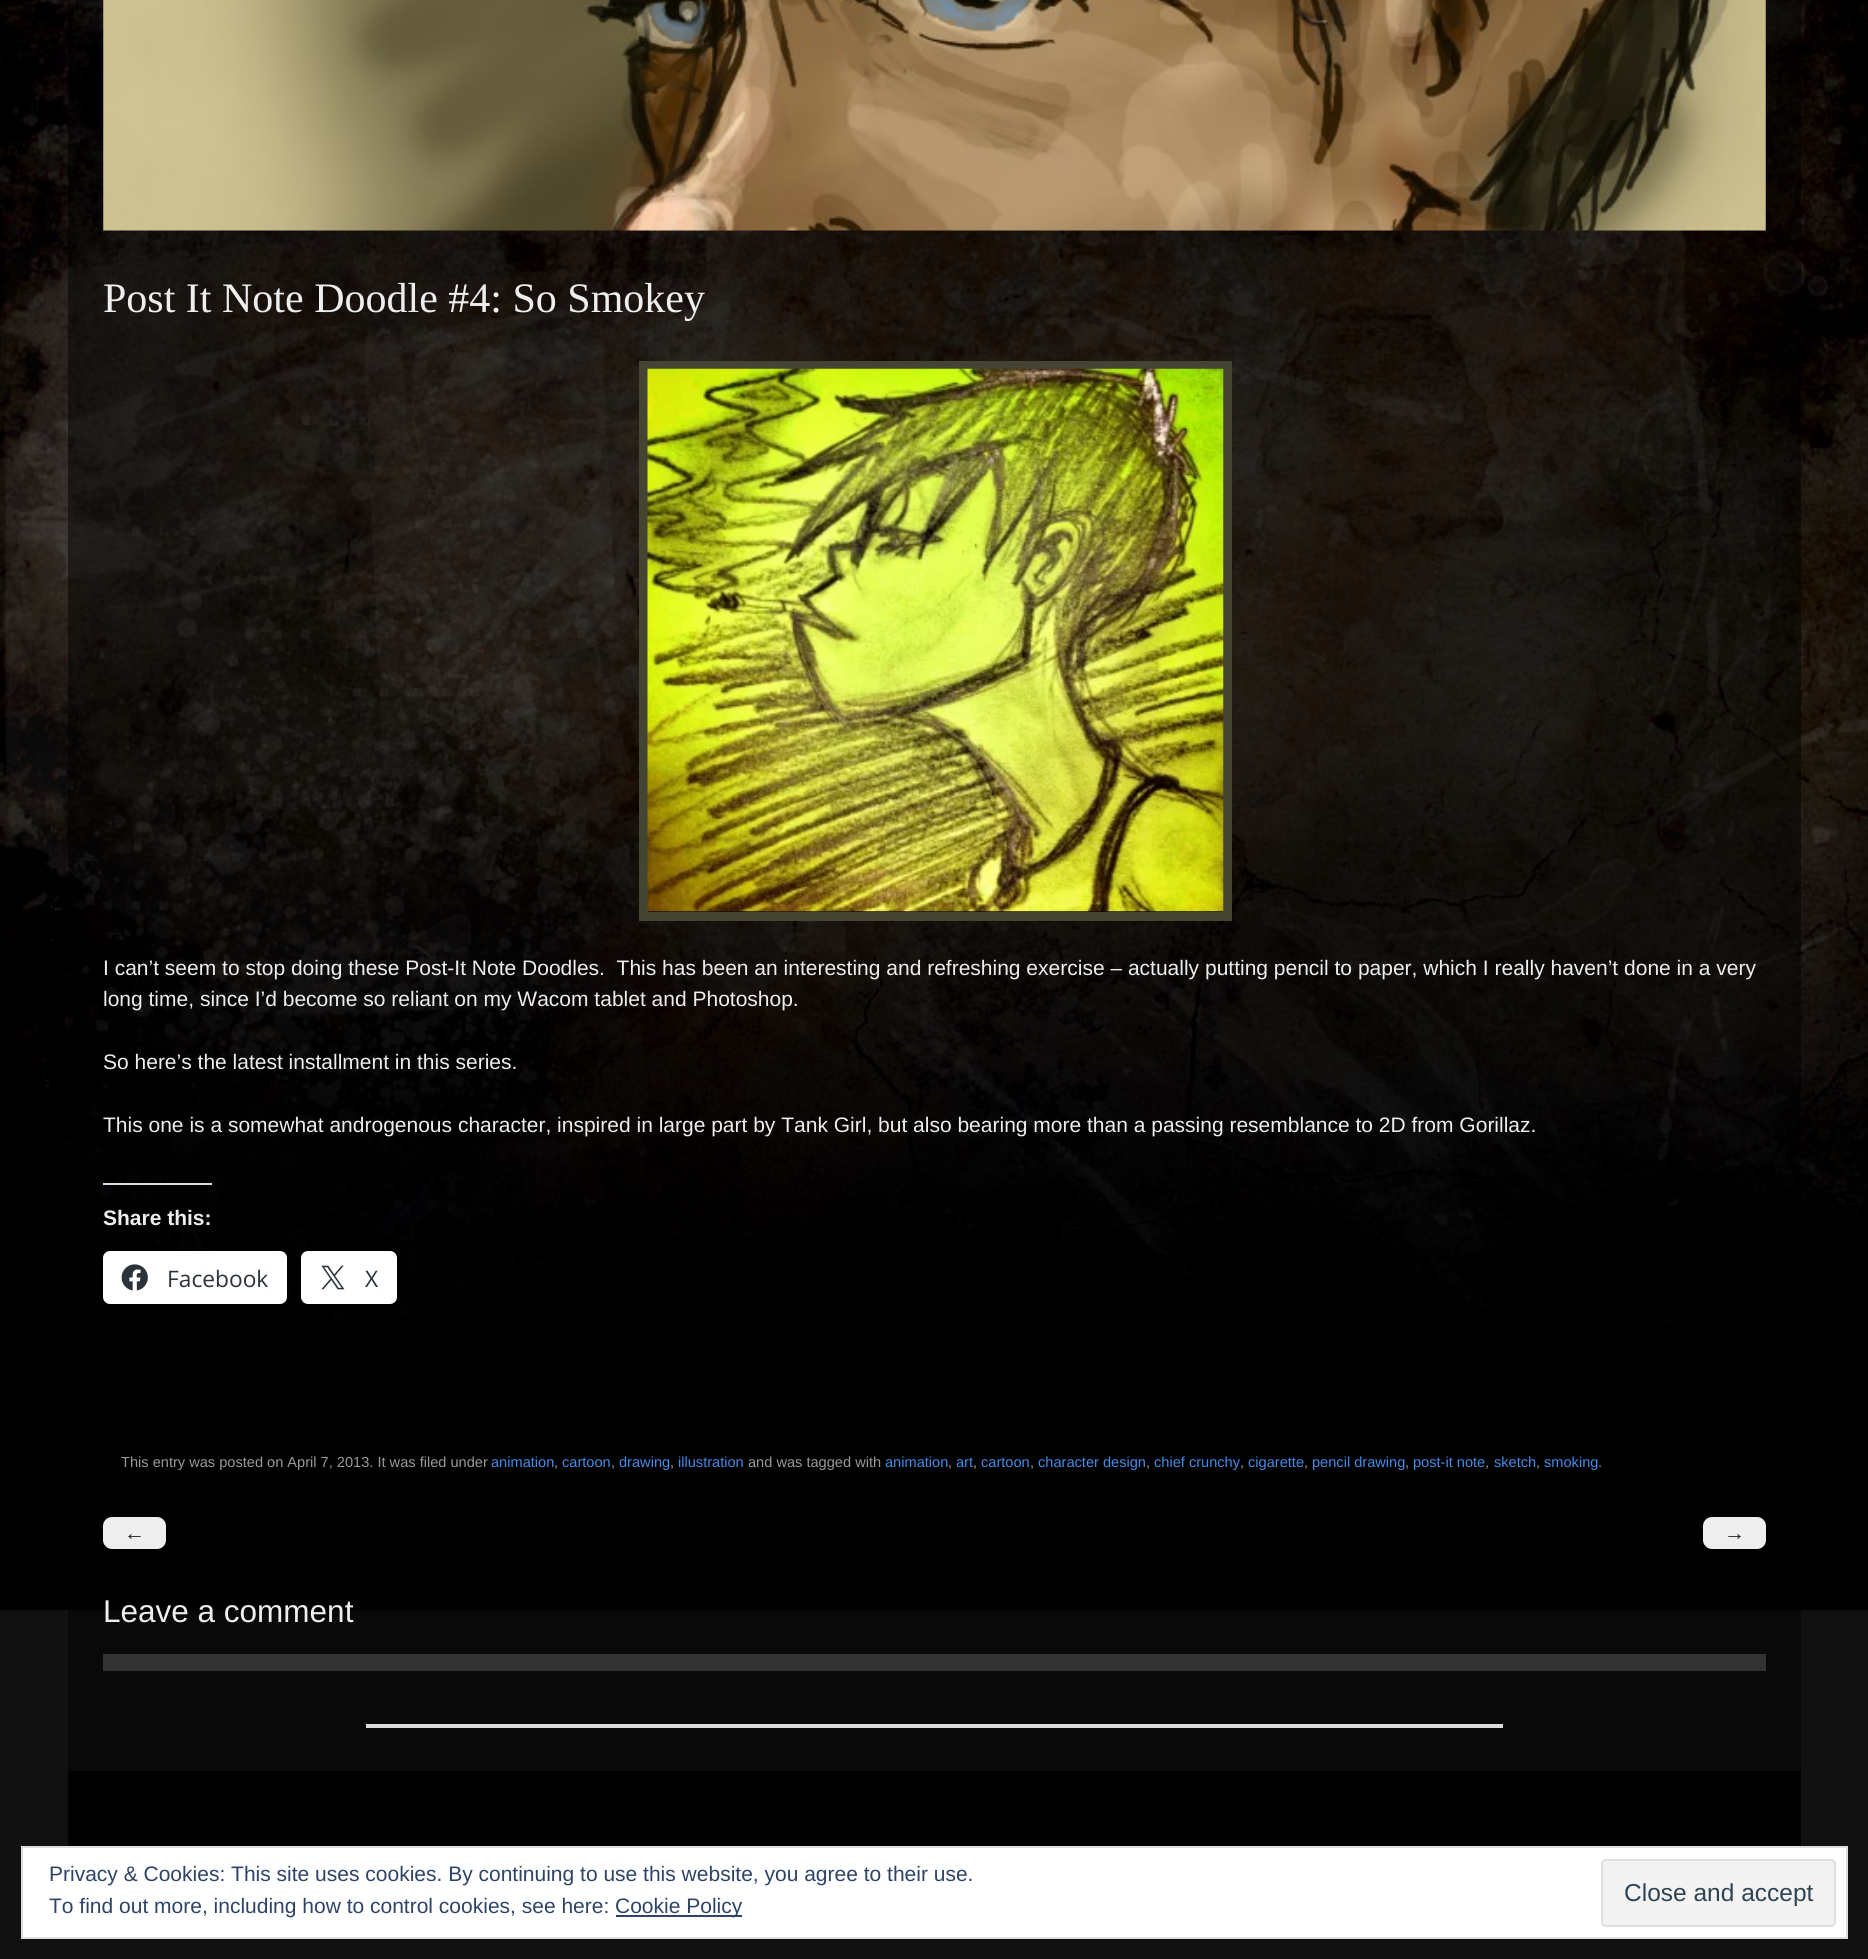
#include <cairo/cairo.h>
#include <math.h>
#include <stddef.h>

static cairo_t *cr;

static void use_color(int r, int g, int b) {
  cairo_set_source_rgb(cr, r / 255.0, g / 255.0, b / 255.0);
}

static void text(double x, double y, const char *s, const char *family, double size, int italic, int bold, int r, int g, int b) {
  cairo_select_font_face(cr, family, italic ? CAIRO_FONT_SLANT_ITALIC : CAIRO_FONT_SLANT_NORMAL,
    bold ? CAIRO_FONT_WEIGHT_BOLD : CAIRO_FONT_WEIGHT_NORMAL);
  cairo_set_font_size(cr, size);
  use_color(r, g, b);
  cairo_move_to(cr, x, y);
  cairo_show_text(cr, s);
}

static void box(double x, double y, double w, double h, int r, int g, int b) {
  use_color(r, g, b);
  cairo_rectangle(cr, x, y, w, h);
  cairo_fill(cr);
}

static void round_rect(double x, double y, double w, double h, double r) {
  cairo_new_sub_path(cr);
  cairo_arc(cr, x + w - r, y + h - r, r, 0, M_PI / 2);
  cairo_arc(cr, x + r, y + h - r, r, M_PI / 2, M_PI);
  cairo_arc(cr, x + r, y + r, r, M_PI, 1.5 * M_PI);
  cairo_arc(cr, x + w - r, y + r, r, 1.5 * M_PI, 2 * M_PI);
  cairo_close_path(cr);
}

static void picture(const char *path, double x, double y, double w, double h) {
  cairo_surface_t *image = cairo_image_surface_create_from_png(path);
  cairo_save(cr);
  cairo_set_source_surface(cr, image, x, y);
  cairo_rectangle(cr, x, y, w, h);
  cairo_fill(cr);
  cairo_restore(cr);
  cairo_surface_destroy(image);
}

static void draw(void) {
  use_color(17, 17, 17);
  cairo_paint(cr);
  box(68, 1609, 1733, 162, 9, 9, 9);
  picture("img_01.png", 0, 0, 1868, 1611);
  picture("img_02.png", 103, 0, 1663, 231);
  cairo_rectangle(cr, 643.5, 365.5, 584, 551);
  use_color(68, 68, 51);
  cairo_set_line_width(cr, 9);
  cairo_stroke(cr);
  picture("img_03.png", 647, 368, 577, 544);
  box(103, 1183, 109, 2, 220, 220, 222);
  use_color(255, 255, 255);
  round_rect(103, 1251, 184, 53, 7);
  cairo_fill(cr);
  picture("img_04.png", 121, 1264, 27, 27);
  round_rect(301, 1251, 96, 53, 7);
  cairo_fill(cr);
  picture("img_05.png", 321, 1265, 24, 25);
  use_color(238, 238, 238);
  round_rect(103, 1517, 63, 32, 9);
  cairo_fill(cr);
  round_rect(1703, 1517, 63, 32, 9);
  cairo_fill(cr);
  box(103, 1654, 1663, 17, 51, 51, 51);
  box(366, 1724, 1137, 4, 220, 220, 222);
  box(68, 1771, 1733, 75, 0, 0, 0);
  use_color(255, 255, 255);
  cairo_rectangle(cr, 22, 1847, 1825, 91);
  cairo_fill_preserve(cr);
  use_color(222, 222, 222);
  cairo_set_line_width(cr, 2);
  cairo_stroke(cr);
  box(616, 1915, 126, 2, 46, 68, 103);
  use_color(243, 243, 243);
  round_rect(1602, 1860, 233, 66, 4);
  cairo_fill_preserve(cr);
  use_color(222, 222, 222);
  cairo_stroke(cr);
  text(103, 312, "Post It Note Doodle #4: So Smokey", "Liberation Serif", 42, 0, 0, 238, 238, 238);
  text(103, 975, "I can’t seem to stop doing these Post-It Note Doodles.  This has been an interesting and refreshing exercise – actually putting pencil to paper, which I really haven’t done in a very", "Liberation Sans", 21, 0, 0, 238, 238, 238);
  text(103, 1006, "long time, since I’d become so reliant on my Wacom tablet and Photoshop.", "Liberation Sans", 21, 0, 0, 238, 238, 238);
  text(103, 1069, "So here’s the latest installment in this series.", "Liberation Sans", 21, 0, 0, 238, 238, 238);
  text(103, 1132, "This one is a somewhat androgenous character, inspired in large part by Tank Girl, but also bearing more than a passing resemblance to 2D from Gorillaz.", "Liberation Sans", 21, 0, 0, 238, 238, 238);
  text(103, 1225, "Share this:", "Liberation Sans", 21, 0, 1, 238, 238, 238);
  text(167, 1287, "Facebook", "Open Sans", 22.75, 0, 0, 44, 51, 56);
  text(365, 1287, "X", "Open Sans", 22.75, 0, 0, 44, 51, 56);
  text(121, 1467, "This entry was posted on April 7, 2013. It was filed under", "Liberation Sans", 14.6, 0, 0, 153, 153, 153);
  text(491, 1467, "animation", "Liberation Sans", 14.6, 0, 0, 66, 140, 231);
  text(554, 1467, ",", "Liberation Sans", 14.6, 0, 0, 153, 153, 153);
  text(562, 1467, "cartoon", "Liberation Sans", 14.6, 0, 0, 66, 140, 231);
  text(611, 1467, ",", "Liberation Sans", 14.6, 0, 0, 153, 153, 153);
  text(619, 1467, "drawing", "Liberation Sans", 14.6, 0, 0, 66, 140, 231);
  text(670, 1467, ",", "Liberation Sans", 14.6, 0, 0, 153, 153, 153);
  text(678, 1467, "illustration", "Liberation Sans", 14.6, 0, 0, 66, 140, 231);
  text(748, 1467, "and was tagged with", "Liberation Sans", 14.6, 0, 0, 153, 153, 153);
  text(885, 1467, "animation", "Liberation Sans", 14.6, 0, 0, 66, 140, 231);
  text(948, 1467, ",", "Liberation Sans", 14.6, 0, 0, 153, 153, 153);
  text(956, 1467, "art", "Liberation Sans", 14.6, 0, 0, 66, 140, 231);
  text(973, 1467, ",", "Liberation Sans", 14.6, 0, 0, 153, 153, 153);
  text(981, 1467, "cartoon", "Liberation Sans", 14.6, 0, 0, 66, 140, 231);
  text(1030, 1467, ",", "Liberation Sans", 14.6, 0, 0, 153, 153, 153);
  text(1038, 1467, "character design", "Liberation Sans", 14.6, 0, 0, 66, 140, 231);
  text(1146, 1467, ",", "Liberation Sans", 14.6, 0, 0, 153, 153, 153);
  text(1154, 1467, "chief crunchy", "Liberation Sans", 14.6, 0, 0, 66, 140, 231);
  text(1240, 1467, ",", "Liberation Sans", 14.6, 0, 0, 153, 153, 153);
  text(1248, 1467, "cigarette", "Liberation Sans", 14.6, 0, 0, 66, 140, 231);
  text(1304, 1467, ",", "Liberation Sans", 14.6, 0, 0, 153, 153, 153);
  text(1312, 1467, "pencil drawing", "Liberation Sans", 14.6, 0, 0, 66, 140, 231);
  text(1405, 1467, ",", "Liberation Sans", 14.6, 0, 0, 153, 153, 153);
  text(1413, 1467, "post-it note", "Liberation Sans", 14.6, 0, 0, 66, 140, 231);
  text(1485, 1467, ",", "Liberation Sans", 14.6, 0, 0, 153, 153, 153);
  text(1494, 1467, "sketch", "Liberation Sans", 14.6, 0, 0, 66, 140, 231);
  text(1536, 1467, ",", "Liberation Sans", 14.6, 0, 0, 153, 153, 153);
  text(1544, 1467, "smoking", "Liberation Sans", 14.6, 0, 0, 66, 140, 231);
  text(1598, 1467, ".", "Liberation Sans", 14.6, 0, 0, 153, 153, 153);
  text(124, 1540, "←", "Liberation Sans", 21, 0, 0, 34, 34, 34);
  text(1724, 1540, "→", "Liberation Sans", 21, 0, 0, 34, 34, 34);
  text(103, 1622, "Leave a comment", "Liberation Sans", 31.5, 0, 0, 238, 238, 238);
  text(49, 1881, "Privacy & Cookies: This site uses cookies. By continuing to use this website, you agree to their use.", "Liberation Sans", 21, 0, 0, 46, 68, 103);
  text(49, 1913, "To find out more, including how to control cookies, see here:", "Liberation Sans", 21, 0, 0, 46, 68, 103);
  text(615, 1913, "Cookie Policy", "Liberation Sans", 21, 0, 0, 46, 68, 103);
  text(1624, 1901, "Close and accept", "Liberation Sans", 24.5, 0, 0, 46, 68, 83);
}

int main(void) {
  cairo_surface_t *surface = cairo_image_surface_create(CAIRO_FORMAT_RGB24, 1868, 1959);
  cr = cairo_create(surface);
  cairo_font_options_t *options = cairo_font_options_create();
  cairo_font_options_set_hint_metrics(options, CAIRO_HINT_METRICS_OFF);
  cairo_font_options_set_hint_style(options, CAIRO_HINT_STYLE_NONE);
  cairo_set_font_options(cr, options);
  cairo_set_miter_limit(cr, 4);
  draw();
  cairo_surface_write_to_png(surface, "out.png");
  cairo_font_options_destroy(options);
  cairo_destroy(cr);
  cairo_surface_destroy(surface);
  return 0;
}
